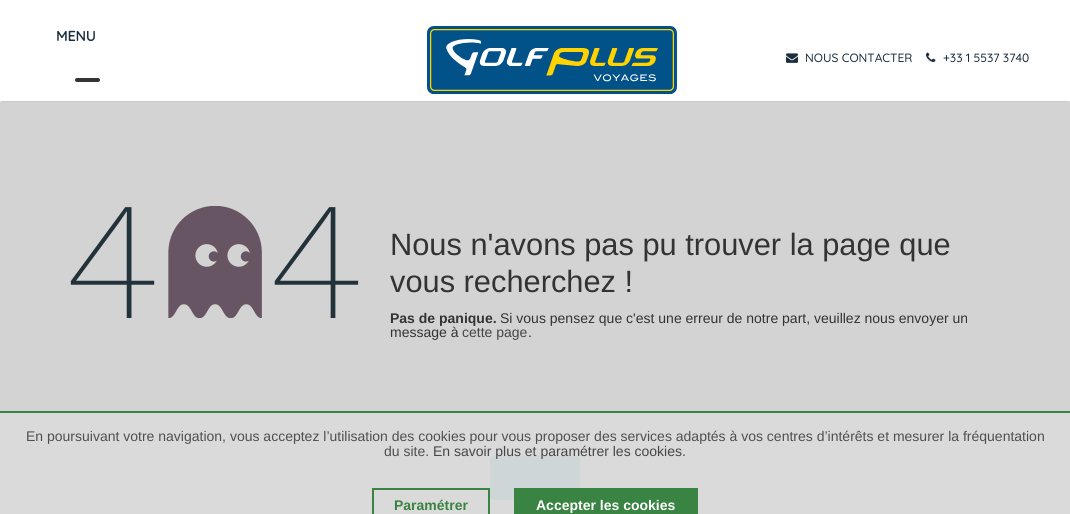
#include <cairo/cairo.h>
#include <math.h>
#include <stddef.h>

static cairo_t *cr;

static void use_color(int r, int g, int b) {
  cairo_set_source_rgb(cr, r / 255.0, g / 255.0, b / 255.0);
}

static void text(double x, double y, const char *s, const char *family, double size, int italic, int bold, int r, int g, int b) {
  cairo_select_font_face(cr, family, italic ? CAIRO_FONT_SLANT_ITALIC : CAIRO_FONT_SLANT_NORMAL,
    bold ? CAIRO_FONT_WEIGHT_BOLD : CAIRO_FONT_WEIGHT_NORMAL);
  cairo_set_font_size(cr, size);
  use_color(r, g, b);
  cairo_move_to(cr, x, y);
  cairo_show_text(cr, s);
}

static void box(double x, double y, double w, double h, int r, int g, int b) {
  use_color(r, g, b);
  cairo_rectangle(cr, x, y, w, h);
  cairo_fill(cr);
}

static void round_rect(double x, double y, double w, double h, double r) {
  cairo_new_sub_path(cr);
  cairo_arc(cr, x + w - r, y + h - r, r, 0, M_PI / 2);
  cairo_arc(cr, x + r, y + h - r, r, M_PI / 2, M_PI);
  cairo_arc(cr, x + r, y + r, r, M_PI, 1.5 * M_PI);
  cairo_arc(cr, x + w - r, y + r, r, 1.5 * M_PI, 2 * M_PI);
  cairo_close_path(cr);
}

static void picture(const char *path, double x, double y, double w, double h) {
  cairo_surface_t *image = cairo_image_surface_create_from_png(path);
  cairo_save(cr);
  cairo_set_source_surface(cr, image, x, y);
  cairo_rectangle(cr, x, y, w, h);
  cairo_fill(cr);
  cairo_restore(cr);
  cairo_surface_destroy(image);
}

static void draw(void) {
  use_color(255, 255, 255);
  cairo_paint(cr);
  use_color(204, 204, 204);
  cairo_new_path(cr);
  cairo_move_to(cr, 1070, 102);
  cairo_line_to(cr, 0, 102);
  cairo_line_to(cr, 1, 101);
  cairo_line_to(cr, 1069, 101);
  cairo_close_path(cr);
  cairo_fill(cr);
  use_color(51, 51, 51);
  round_rect(75, 78, 25, 4, 2);
  cairo_fill(cr);
  picture("img_01.png", 427, 26, 250, 68);
  picture("img_02.png", 786, 53, 12, 10);
  picture("img_03.png", 926, 52, 10, 10);
  box(0, 102, 1070, 309, 211, 211, 211);
  box(0, 413, 1070, 101, 218, 218, 218);
  picture("img_04.png", 70, 206, 289, 112);
  box(70, 382, 930, 1, 206, 212, 218);
  use_color(207, 214, 215);
  round_rect(490, 456, 90, 44, 4);
  cairo_fill(cr);
  box(0, 411, 1070, 2, 57, 131, 67);
  cairo_rectangle(cr, 373, 489, 116, 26);
  cairo_stroke(cr);
  box(514, 488, 184, 26, 57, 131, 67);
  text(56, 41, "MENU", "Quicksand", 14, 0, 1, 26, 45, 62);
  text(805, 62, "NOUS CONTACTER", "Quicksand Light", 12, 0, 0, 26, 45, 62);
  text(943, 62, "+33 1 5537 3740", "Quicksand Light", 12, 0, 0, 26, 45, 62);
  text(390, 255, "Nous n'avons pas pu trouver la page que", "Liberation Sans", 30.8, 0, 0, 51, 51, 51);
  text(390, 292, "vous recherchez !", "Liberation Sans", 30.8, 0, 0, 51, 51, 51);
  text(390, 323, "Pas de panique.", "Liberation Sans", 14, 0, 1, 51, 51, 51);
  text(500, 323, "Si vous pensez que c'est une erreur de notre part, veuillez nous envoyer un", "Liberation Sans", 14, 0, 0, 51, 51, 51);
  text(390, 337, "message à", "Liberation Sans", 14, 0, 0, 51, 51, 51);
  text(462, 337, "cette page", "Liberation Sans", 14, 0, 0, 70, 70, 70);
  text(528, 337, ".", "Liberation Sans", 14, 0, 0, 51, 51, 51);
  text(26, 441, "En poursuivant votre navigation, vous acceptez l’utilisation des cookies pour vous proposer des services adaptés à vos centres d’intérêts et mesurer la fréquentation", "Liberation Sans", 14, 0, 0, 79, 79, 79);
  text(384, 456, "du site.", "Liberation Sans", 14, 0, 0, 79, 79, 79);
  text(433, 456, "En savoir plus et paramétrer les cookies.", "Liberation Sans", 14, 0, 0, 70, 70, 70);
  text(394, 510, "Paramétrer", "Liberation Sans", 14, 0, 1, 57, 131, 67);
  text(536, 510, "Accepter les cookies", "Liberation Sans", 14, 0, 1, 255, 255, 255);
}

int main(void) {
  cairo_surface_t *surface = cairo_image_surface_create(CAIRO_FORMAT_RGB24, 1070, 514);
  cr = cairo_create(surface);
  cairo_font_options_t *options = cairo_font_options_create();
  cairo_font_options_set_hint_metrics(options, CAIRO_HINT_METRICS_OFF);
  cairo_font_options_set_hint_style(options, CAIRO_HINT_STYLE_NONE);
  cairo_set_font_options(cr, options);
  cairo_set_miter_limit(cr, 4);
  draw();
  cairo_surface_write_to_png(surface, "out.png");
  cairo_font_options_destroy(options);
  cairo_destroy(cr);
  cairo_surface_destroy(surface);
  return 0;
}
